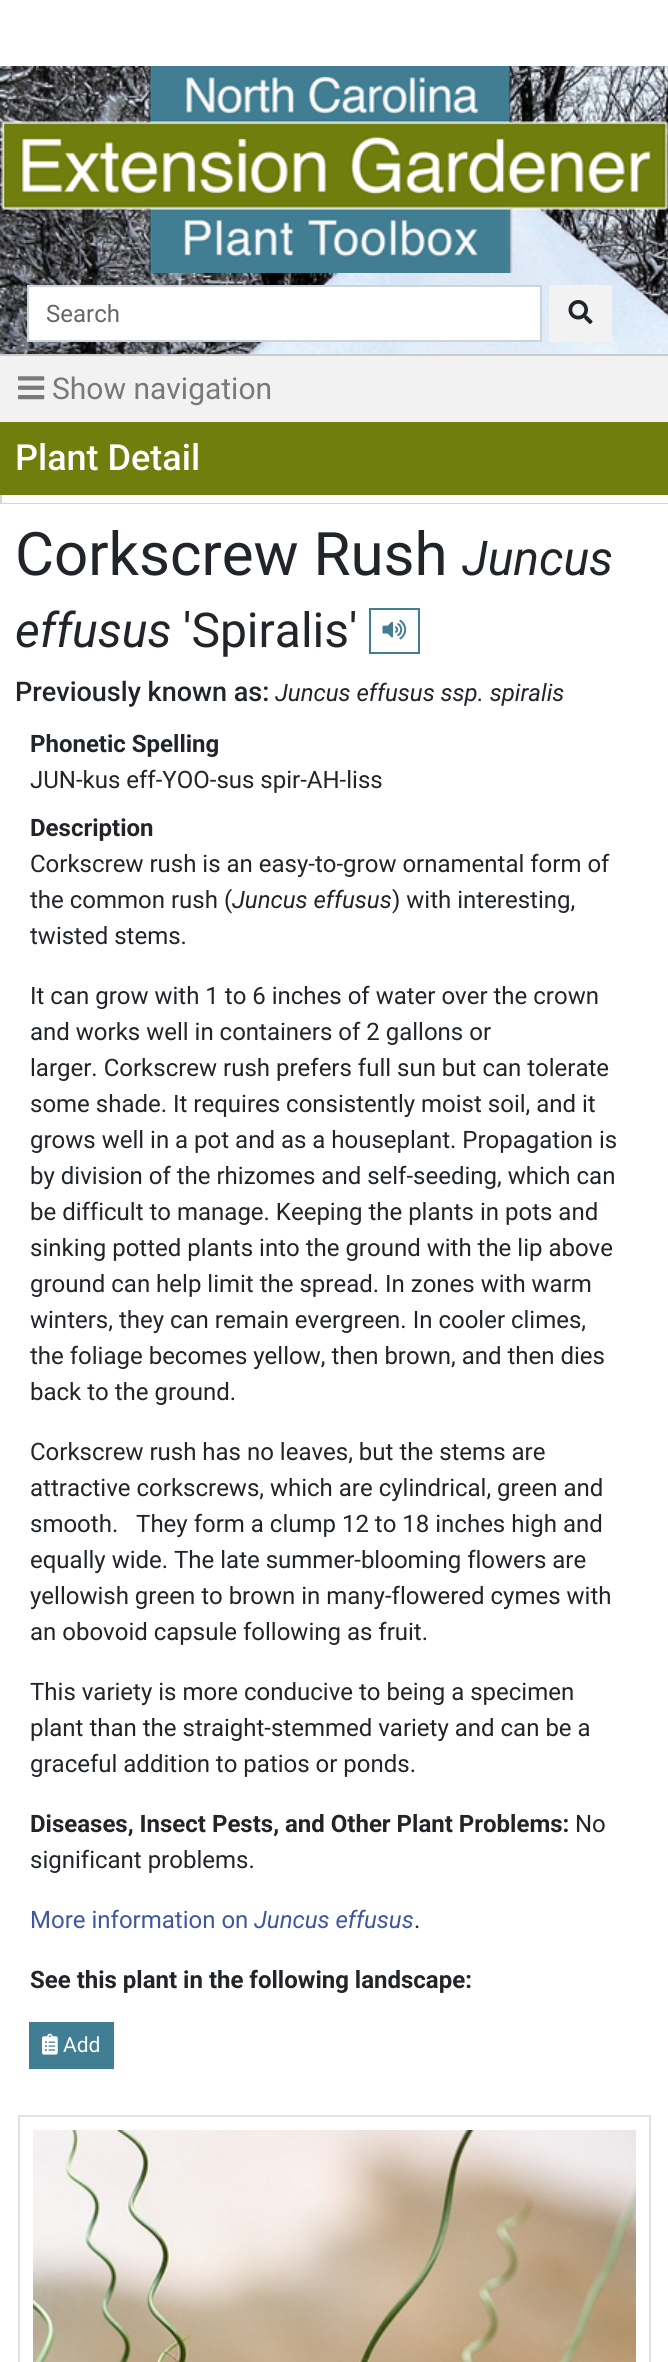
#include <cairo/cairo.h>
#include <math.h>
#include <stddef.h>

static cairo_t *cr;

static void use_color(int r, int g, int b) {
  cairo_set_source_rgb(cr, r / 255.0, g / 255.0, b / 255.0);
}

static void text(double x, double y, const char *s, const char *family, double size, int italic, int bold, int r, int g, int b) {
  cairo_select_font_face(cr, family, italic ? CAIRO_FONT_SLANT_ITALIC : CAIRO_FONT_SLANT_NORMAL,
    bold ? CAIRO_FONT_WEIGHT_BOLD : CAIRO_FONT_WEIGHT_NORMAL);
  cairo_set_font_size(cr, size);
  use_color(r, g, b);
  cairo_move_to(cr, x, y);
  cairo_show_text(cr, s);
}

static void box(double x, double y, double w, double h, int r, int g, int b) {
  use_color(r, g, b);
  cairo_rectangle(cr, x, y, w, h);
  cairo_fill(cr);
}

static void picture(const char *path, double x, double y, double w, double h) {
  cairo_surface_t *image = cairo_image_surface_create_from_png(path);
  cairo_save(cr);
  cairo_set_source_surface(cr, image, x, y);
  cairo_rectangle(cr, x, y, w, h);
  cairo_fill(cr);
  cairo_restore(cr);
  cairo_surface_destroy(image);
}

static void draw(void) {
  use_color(255, 255, 255);
  cairo_paint(cr);
  picture("img_01.png", 0, 66, 668, 288);
  picture("img_02.png", 1, 66, 667, 207);
  box(0, 354, 668, 2, 204, 203, 203);
  use_color(255, 255, 255);
  cairo_rectangle(cr, 28, 286, 513, 55);
  cairo_fill_preserve(cr);
  use_color(206, 212, 218);
  cairo_stroke(cr);
  box(549, 285, 63, 57, 242, 242, 242);
  picture("img_03.png", 568, 300, 25, 24);
  box(0, 356, 668, 66, 242, 242, 242);
  picture("img_04.png", 18, 376, 27, 24);
  box(0, 503, 668, 1, 214, 213, 211);
  box(0, 495, 2, 9, 214, 213, 211);
  box(0, 422, 668, 73, 111, 126, 13);
  cairo_rectangle(cr, 370, 609, 49, 44);
  use_color(66, 126, 147);
  cairo_stroke(cr);
  picture("img_05.png", 382, 619, 25, 21);
  box(29, 2022, 85, 47, 66, 126, 147);
  picture("img_06.png", 42, 2033, 16, 22);
  cairo_rectangle(cr, 19, 2116, 631, 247);
  use_color(222, 226, 230);
  cairo_stroke(cr);
  picture("img_07.png", 33, 2130, 603, 232);
  text(46, 322, "Search", "Roboto", 24, 0, 0, 102, 102, 102);
  text(52, 399, "Show navigation", "Roboto", 30, 0, 0, 121, 121, 121);
  text(15, 470, "Plant Detail", "Roboto Medium", 36, 0, 0, 255, 255, 255);
  text(15, 575, "Corkscrew Rush", "Roboto", 60, 0, 0, 33, 37, 41);
  text(462, 575, "Juncus", "Roboto", 48, 1, 0, 33, 37, 41);
  text(15, 647, "effusus", "Roboto", 48, 1, 0, 33, 37, 41);
  text(183, 647, "'Spiralis'", "Roboto", 48, 0, 0, 33, 37, 41);
  text(15, 701, "Previously known as:", "Roboto Medium", 27, 0, 0, 33, 37, 41);
  text(275, 701, "Juncus effusus ssp. spiralis", "Roboto", 24, 1, 0, 33, 37, 41);
  text(30, 752, "Phonetic Spelling", "Roboto", 24, 0, 1, 33, 37, 41);
  text(30, 788, "JUN-kus eff-YOO-sus spir-AH-liss", "Roboto", 24, 0, 0, 33, 37, 41);
  text(30, 836, "Description", "Roboto", 24, 0, 1, 33, 37, 41);
  text(30, 872, "Corkscrew rush is an easy-to-grow ornamental form of", "Roboto", 24, 0, 0, 33, 37, 41);
  text(30, 908, "the common rush (", "Roboto", 24, 0, 0, 33, 37, 41);
  text(232, 908, "Juncus effusus", "Roboto", 24, 1, 0, 33, 37, 41);
  text(392, 908, ") with interesting,", "Roboto", 24, 0, 0, 33, 37, 41);
  text(30, 944, "twisted stems.", "Roboto", 24, 0, 0, 33, 37, 41);
  text(30, 1004, "It can grow with 1 to 6 inches of water over the crown", "Roboto", 24, 0, 0, 33, 37, 41);
  text(30, 1040, "and works well in containers of 2 gallons or", "Roboto", 24, 0, 0, 33, 37, 41);
  text(30, 1076, "larger. Corkscrew rush prefers full sun but can tolerate", "Roboto", 24, 0, 0, 33, 37, 41);
  text(30, 1112, "some shade. It requires consistently moist soil, and it", "Roboto", 24, 0, 0, 33, 37, 41);
  text(30, 1148, "grows well in a pot and as a houseplant. Propagation is", "Roboto", 24, 0, 0, 33, 37, 41);
  text(30, 1184, "by division of the rhizomes and self-seeding, which can", "Roboto", 24, 0, 0, 33, 37, 41);
  text(30, 1220, "be difficult to manage. Keeping the plants in pots and", "Roboto", 24, 0, 0, 33, 37, 41);
  text(30, 1256, "sinking potted plants into the ground with the lip above", "Roboto", 24, 0, 0, 33, 37, 41);
  text(30, 1292, "ground can help limit the spread. In zones with warm", "Roboto", 24, 0, 0, 33, 37, 41);
  text(30, 1328, "winters, they can remain evergreen. In cooler climes,", "Roboto", 24, 0, 0, 33, 37, 41);
  text(30, 1364, "the foliage becomes yellow, then brown, and then dies", "Roboto", 24, 0, 0, 33, 37, 41);
  text(30, 1400, "back to the ground.", "Roboto", 24, 0, 0, 33, 37, 41);
  text(30, 1460, "Corkscrew rush has no leaves, but the stems are", "Roboto", 24, 0, 0, 33, 37, 41);
  text(30, 1496, "attractive corkscrews, which are cylindrical, green and", "Roboto", 24, 0, 0, 33, 37, 41);
  text(30, 1532, "smooth.   They form a clump 12 to 18 inches high and", "Roboto", 24, 0, 0, 33, 37, 41);
  text(30, 1568, "equally wide. The late summer-blooming flowers are", "Roboto", 24, 0, 0, 33, 37, 41);
  text(30, 1604, "yellowish green to brown in many-flowered cymes with", "Roboto", 24, 0, 0, 33, 37, 41);
  text(30, 1640, "an obovoid capsule following as fruit.", "Roboto", 24, 0, 0, 33, 37, 41);
  text(30, 1700, "This variety is more conducive to being a specimen", "Roboto", 24, 0, 0, 33, 37, 41);
  text(30, 1736, "plant than the straight-stemmed variety and can be a", "Roboto", 24, 0, 0, 33, 37, 41);
  text(30, 1772, "graceful addition to patios or ponds.", "Roboto", 24, 0, 0, 33, 37, 41);
  text(30, 1832, "Diseases, Insect Pests, and Other Plant Problems:", "Roboto", 24, 0, 1, 33, 37, 41);
  text(575, 1832, "No", "Roboto", 24, 0, 0, 33, 37, 41);
  text(30, 1868, "significant problems.", "Roboto", 24, 0, 0, 33, 37, 41);
  text(30, 1928, "More information on", "Roboto", 24, 0, 0, 65, 86, 161);
  text(254, 1928, "Juncus effusus", "Roboto", 24, 1, 0, 65, 86, 161);
  text(414, 1928, ".", "Roboto", 24, 0, 0, 33, 37, 41);
  text(30, 1988, "See this plant in the following landscape:", "Roboto", 24, 0, 1, 33, 37, 41);
  text(63, 2052, "Add", "Roboto", 21, 0, 0, 255, 255, 255);
}

int main(void) {
  cairo_surface_t *surface = cairo_image_surface_create(CAIRO_FORMAT_RGB24, 668, 2362);
  cr = cairo_create(surface);
  cairo_font_options_t *options = cairo_font_options_create();
  cairo_font_options_set_hint_metrics(options, CAIRO_HINT_METRICS_OFF);
  cairo_font_options_set_hint_style(options, CAIRO_HINT_STYLE_NONE);
  cairo_set_font_options(cr, options);
  cairo_set_miter_limit(cr, 4);
  draw();
  cairo_surface_write_to_png(surface, "out.png");
  cairo_font_options_destroy(options);
  cairo_destroy(cr);
  cairo_surface_destroy(surface);
  return 0;
}
